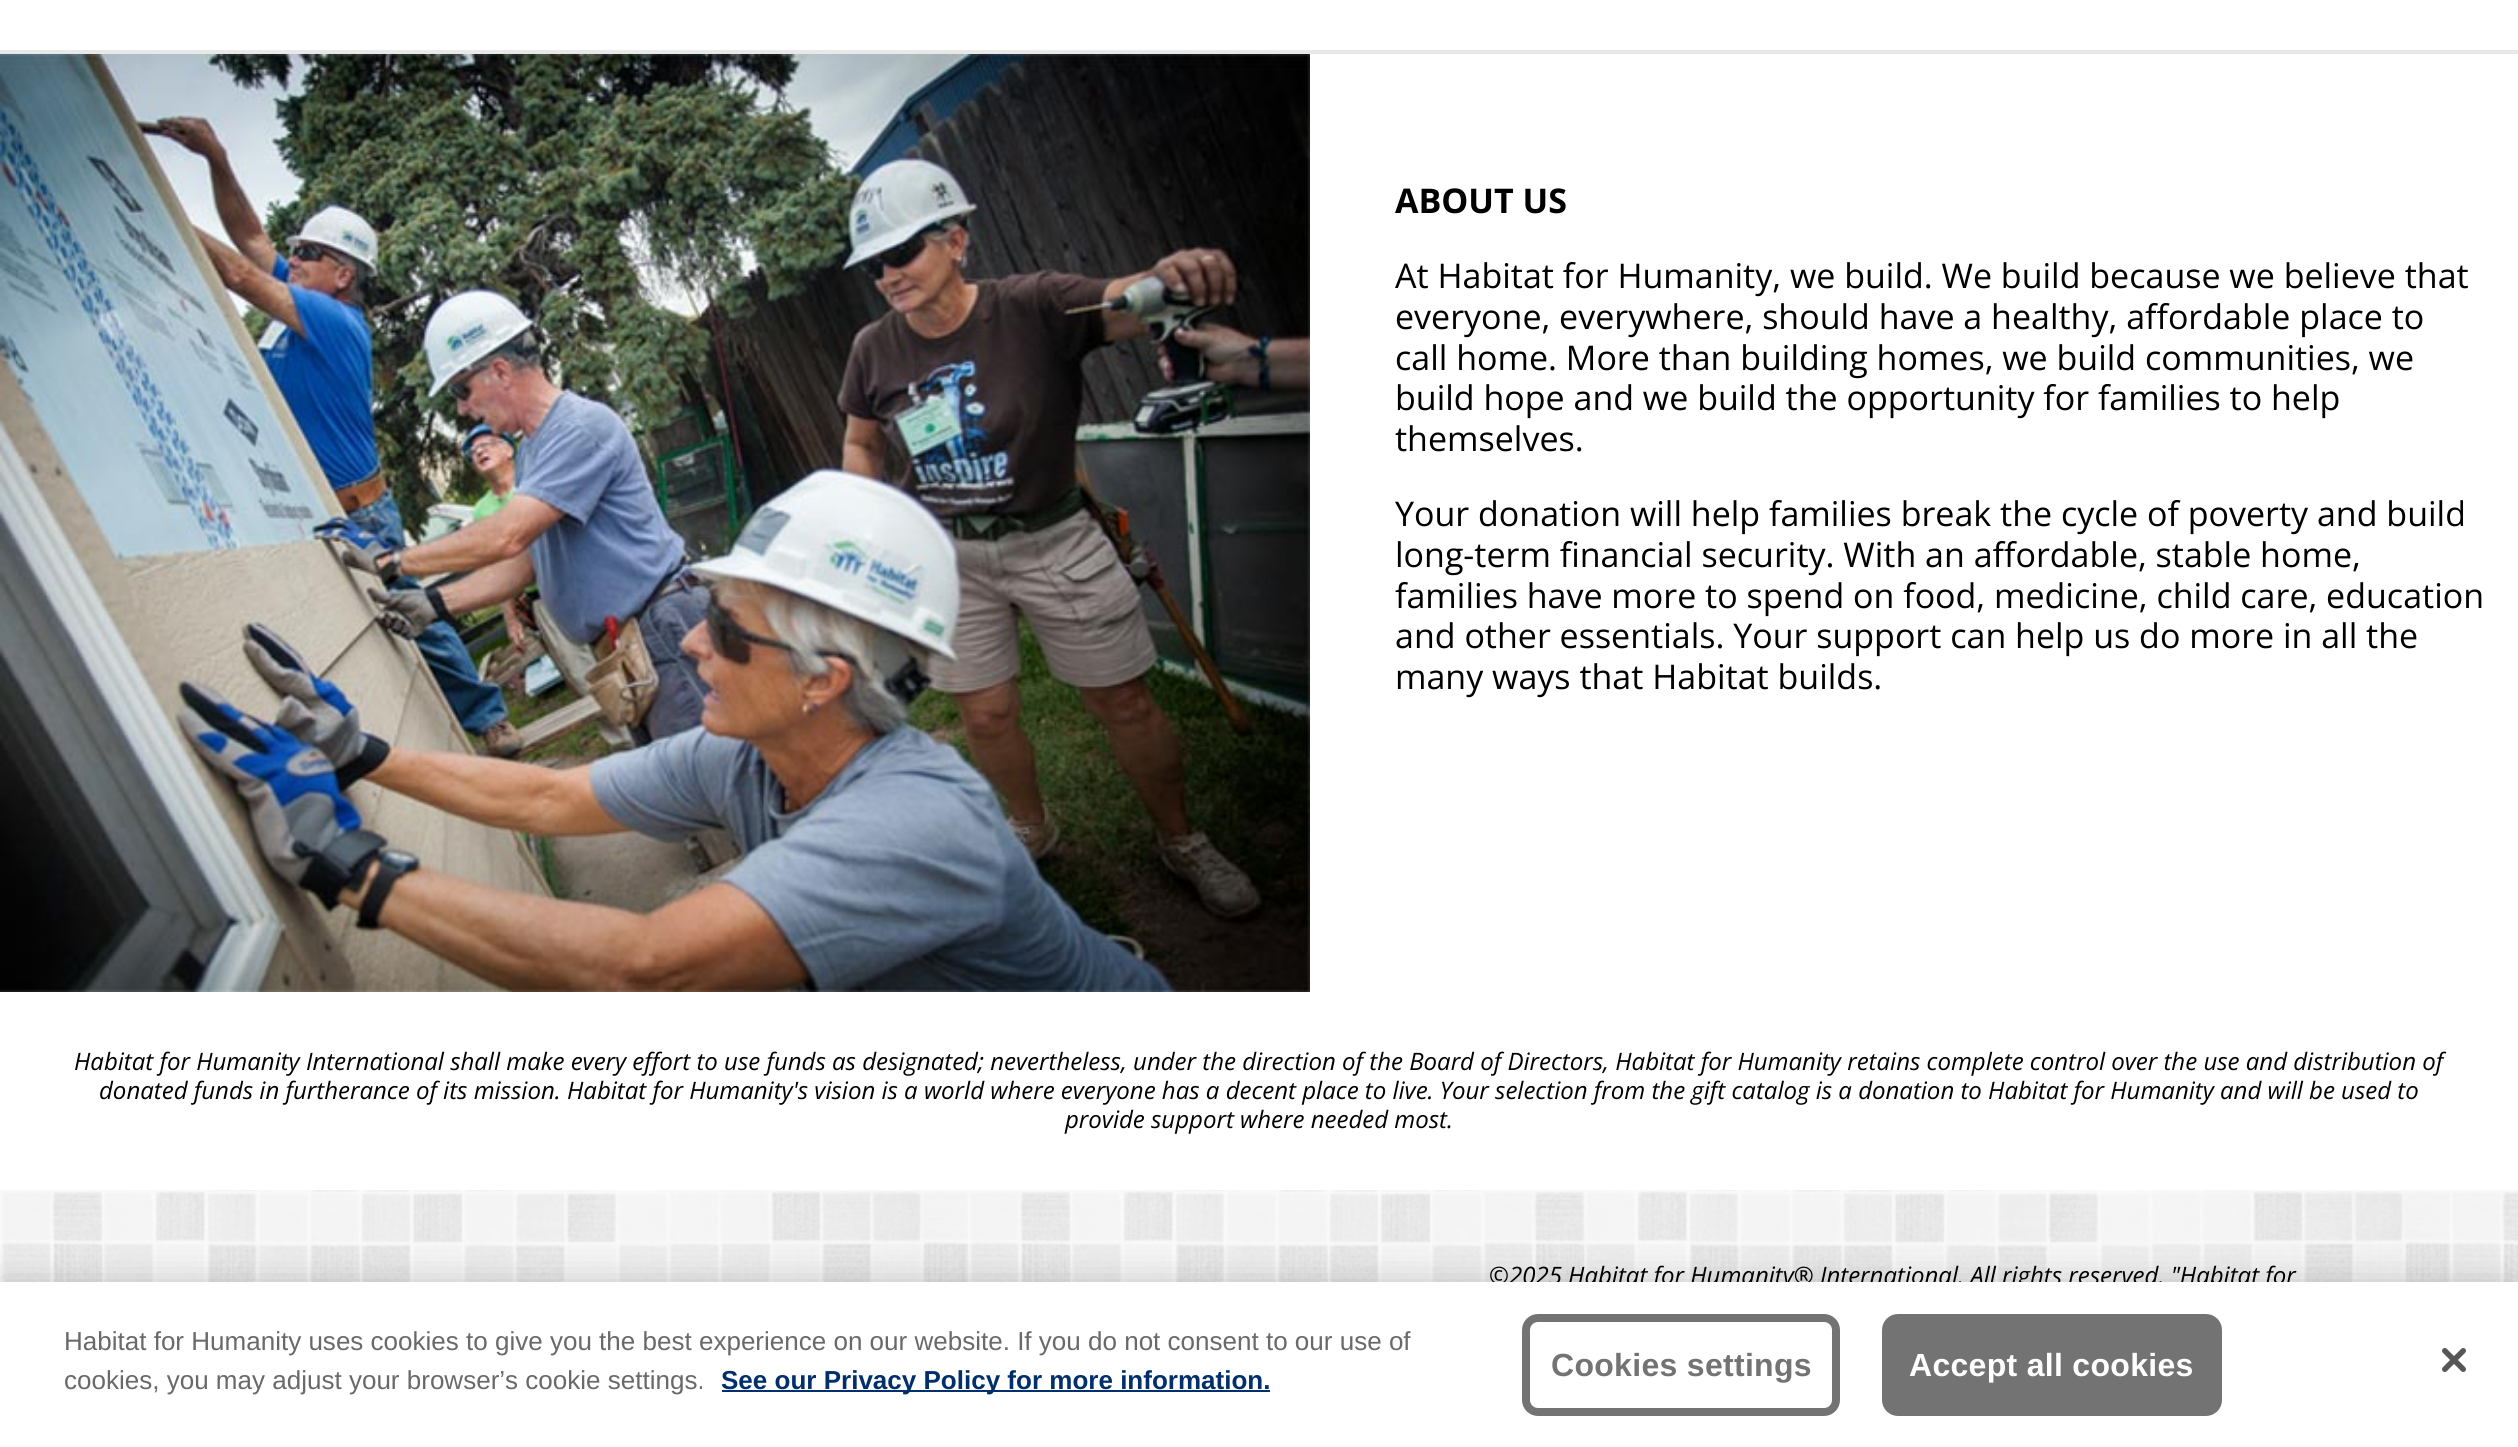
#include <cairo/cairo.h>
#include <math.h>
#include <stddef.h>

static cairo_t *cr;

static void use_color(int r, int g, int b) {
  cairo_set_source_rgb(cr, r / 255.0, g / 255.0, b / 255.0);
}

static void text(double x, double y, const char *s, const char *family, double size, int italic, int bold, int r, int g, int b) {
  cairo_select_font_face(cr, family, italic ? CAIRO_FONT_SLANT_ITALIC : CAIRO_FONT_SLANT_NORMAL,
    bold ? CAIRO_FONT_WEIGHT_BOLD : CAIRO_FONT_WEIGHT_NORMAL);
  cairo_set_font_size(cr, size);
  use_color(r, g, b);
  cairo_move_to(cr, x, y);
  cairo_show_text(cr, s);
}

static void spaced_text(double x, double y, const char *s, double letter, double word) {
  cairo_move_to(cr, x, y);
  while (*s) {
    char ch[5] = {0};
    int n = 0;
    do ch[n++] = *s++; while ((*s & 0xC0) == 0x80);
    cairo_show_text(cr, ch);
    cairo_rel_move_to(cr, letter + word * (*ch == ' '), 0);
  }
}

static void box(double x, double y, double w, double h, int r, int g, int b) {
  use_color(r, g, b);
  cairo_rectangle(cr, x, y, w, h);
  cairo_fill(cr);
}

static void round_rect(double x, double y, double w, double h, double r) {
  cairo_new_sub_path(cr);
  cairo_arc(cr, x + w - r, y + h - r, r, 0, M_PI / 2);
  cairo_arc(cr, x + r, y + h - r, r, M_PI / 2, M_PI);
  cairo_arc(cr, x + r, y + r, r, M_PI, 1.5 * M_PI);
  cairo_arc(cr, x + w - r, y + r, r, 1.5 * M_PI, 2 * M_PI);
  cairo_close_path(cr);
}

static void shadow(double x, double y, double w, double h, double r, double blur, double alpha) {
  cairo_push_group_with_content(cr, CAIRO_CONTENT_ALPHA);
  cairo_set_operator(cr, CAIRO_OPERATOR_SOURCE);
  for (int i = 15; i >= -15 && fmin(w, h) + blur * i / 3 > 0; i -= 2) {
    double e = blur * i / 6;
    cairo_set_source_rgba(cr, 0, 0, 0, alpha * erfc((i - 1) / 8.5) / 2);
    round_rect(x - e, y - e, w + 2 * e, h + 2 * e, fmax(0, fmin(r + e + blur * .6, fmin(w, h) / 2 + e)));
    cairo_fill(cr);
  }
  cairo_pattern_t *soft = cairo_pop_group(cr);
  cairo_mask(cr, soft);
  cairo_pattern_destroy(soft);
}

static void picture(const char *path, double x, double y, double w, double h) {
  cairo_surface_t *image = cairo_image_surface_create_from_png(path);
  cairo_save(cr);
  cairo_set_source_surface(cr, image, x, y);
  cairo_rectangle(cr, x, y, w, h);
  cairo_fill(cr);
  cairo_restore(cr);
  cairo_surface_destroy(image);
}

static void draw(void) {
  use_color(255, 255, 255);
  cairo_paint(cr);
  box(0, 50, 2518, 4, 232, 232, 232);
  picture("img_01.png", 0, 54, 1310, 938);
  picture("img_02.png", 0, 1190, 2518, 92);
  use_color(0, 0, 0);
  shadow(0, 1282, 2518, 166, 0, 18, 0.2);
  text(1395, 213, "ABOUT US", "Open Sans", 34, 0, 1, 0, 0, 0);
  text(1395, 288, "At Habitat for Humanity, we build. We build because we believe that", "Open Sans", 34, 0, 0, 0, 0, 0);
  text(1395, 329, "everyone, everywhere, should have a healthy, affordable place to", "Open Sans", 34, 0, 0, 0, 0, 0);
  text(1395, 370, "call home. More than building homes, we build communities, we", "Open Sans", 34, 0, 0, 0, 0, 0);
  text(1395, 410, "build hope and we build the opportunity for families to help", "Open Sans", 34, 0, 0, 0, 0, 0);
  text(1395, 451, "themselves.", "Open Sans", 34, 0, 0, 0, 0, 0);
  text(1395, 526, "Your donation will help families break the cycle of poverty and build", "Open Sans", 34, 0, 0, 0, 0, 0);
  text(1395, 567, "long-term financial security. With an affordable, stable home,", "Open Sans", 34, 0, 0, 0, 0, 0);
  text(1395, 608, "families have more to spend on food, medicine, child care, education", "Open Sans", 34, 0, 0, 0, 0, 0);
  text(1395, 648, "and other essentials. Your support can help us do more in all the", "Open Sans", 34, 0, 0, 0, 0, 0);
  text(1395, 689, "many ways that Habitat builds.", "Open Sans", 34, 0, 0, 0, 0, 0);
  text(74, 1070, "Habitat for Humanity International shall make every effort to use funds as designated; nevertheless, under the direction of the Board of Directors, Habitat for Humanity retains complete control over the use and distribution of", "Open Sans", 24, 1, 0, 0, 0, 0);
  text(99, 1099, "donated funds in furtherance of its mission. Habitat for Humanity's vision is a world where everyone has a decent place to live. Your selection from the gift catalog is a donation to Habitat for Humanity and will be used to", "Open Sans", 24, 1, 0, 0, 0, 0);
  text(1065, 1128, "provide support where needed most.", "Open Sans", 24, 1, 0, 0, 0, 0);
  text(1489, 1284, "©2025 Habitat for Humanity® International. All rights reserved. \"Habitat for", "Open Sans", 24, 1, 0, 0, 0, 0);
  box(0, 1282, 2518, 165, 255, 255, 255);
  text(64, 1350, "Habitat for Humanity uses cookies to give you the best experience on our website. If you do not consent to our use of", "Liberation Sans", 26.02, 0, 0, 105, 105, 105);
  text(64, 1389, "cookies, you may adjust your browser’s cookie settings.", "Liberation Sans", 26.02, 0, 0, 105, 105, 105);
  box(722, 1390, 548, 2, 0, 47, 108);
  text(721, 1389, "See our Privacy Policy for more information.", "Liberation Sans", 26.02, 0, 1, 0, 47, 108);
  round_rect(1526, 1318, 310, 94, 12);
  use_color(115, 115, 115);
  cairo_set_line_width(cr, 8);
  cairo_stroke(cr);
  cairo_set_font_size(cr, 32);
  spaced_text(1551, 1376, "Cookies settings", 0.3, 0);
  round_rect(1886, 1318, 332, 94, 12);
  cairo_fill_preserve(cr);
  cairo_stroke(cr);
  use_color(255, 255, 255);
  spaced_text(1909, 1376, "Accept all cookies", 0.3, 0);
  picture("img_03.png", 2442, 1348, 24, 24);
}

int main(void) {
  cairo_surface_t *surface = cairo_image_surface_create(CAIRO_FORMAT_RGB24, 2518, 1447);
  cr = cairo_create(surface);
  cairo_font_options_t *options = cairo_font_options_create();
  cairo_font_options_set_hint_metrics(options, CAIRO_HINT_METRICS_OFF);
  cairo_font_options_set_hint_style(options, CAIRO_HINT_STYLE_NONE);
  cairo_set_font_options(cr, options);
  cairo_set_miter_limit(cr, 4);
  draw();
  cairo_surface_write_to_png(surface, "out.png");
  cairo_font_options_destroy(options);
  cairo_destroy(cr);
  cairo_surface_destroy(surface);
  return 0;
}
